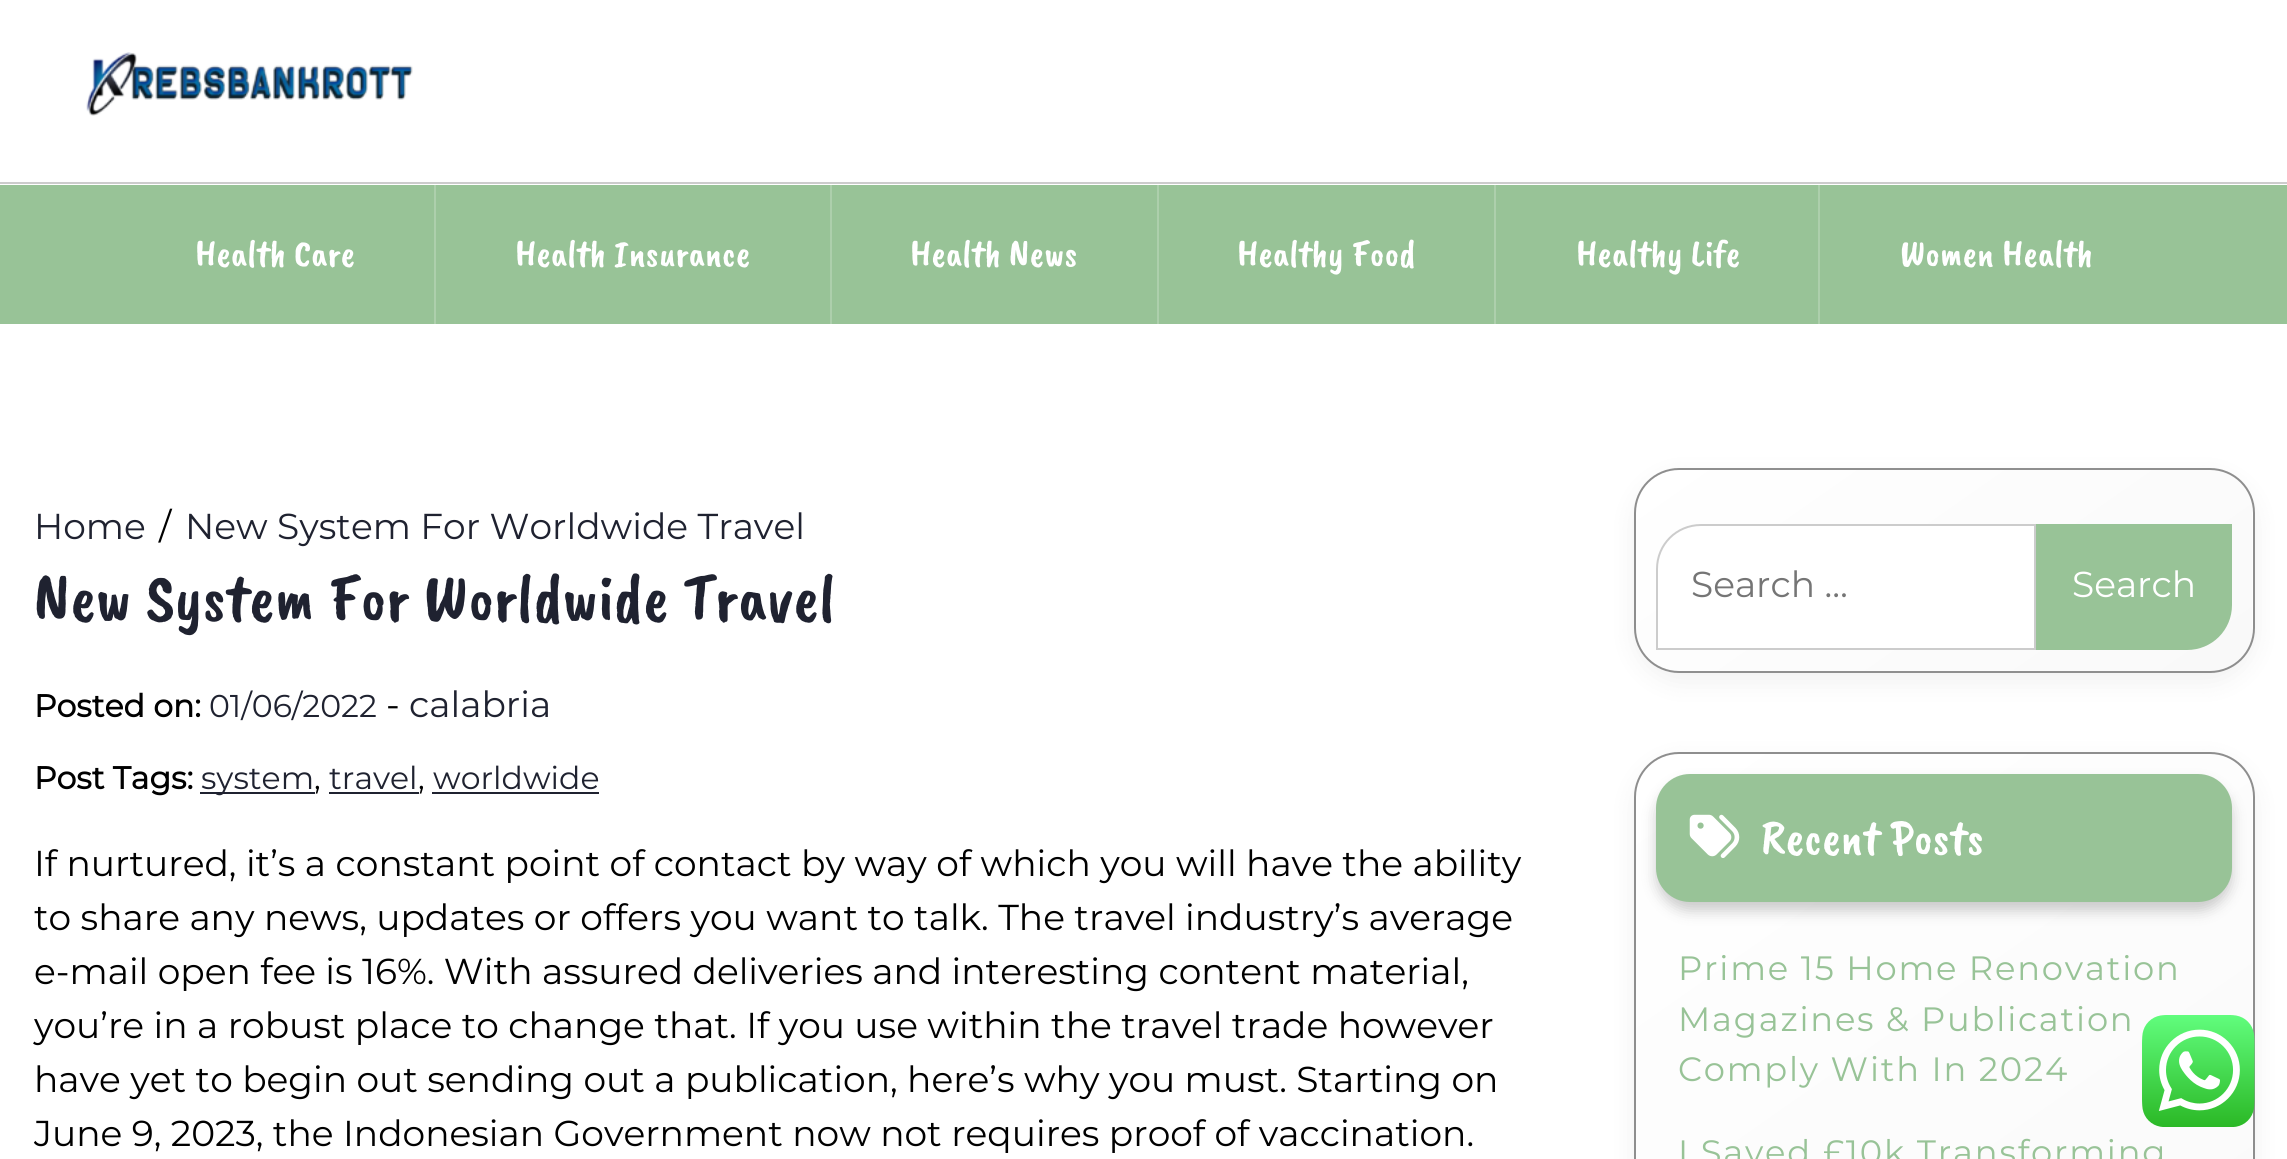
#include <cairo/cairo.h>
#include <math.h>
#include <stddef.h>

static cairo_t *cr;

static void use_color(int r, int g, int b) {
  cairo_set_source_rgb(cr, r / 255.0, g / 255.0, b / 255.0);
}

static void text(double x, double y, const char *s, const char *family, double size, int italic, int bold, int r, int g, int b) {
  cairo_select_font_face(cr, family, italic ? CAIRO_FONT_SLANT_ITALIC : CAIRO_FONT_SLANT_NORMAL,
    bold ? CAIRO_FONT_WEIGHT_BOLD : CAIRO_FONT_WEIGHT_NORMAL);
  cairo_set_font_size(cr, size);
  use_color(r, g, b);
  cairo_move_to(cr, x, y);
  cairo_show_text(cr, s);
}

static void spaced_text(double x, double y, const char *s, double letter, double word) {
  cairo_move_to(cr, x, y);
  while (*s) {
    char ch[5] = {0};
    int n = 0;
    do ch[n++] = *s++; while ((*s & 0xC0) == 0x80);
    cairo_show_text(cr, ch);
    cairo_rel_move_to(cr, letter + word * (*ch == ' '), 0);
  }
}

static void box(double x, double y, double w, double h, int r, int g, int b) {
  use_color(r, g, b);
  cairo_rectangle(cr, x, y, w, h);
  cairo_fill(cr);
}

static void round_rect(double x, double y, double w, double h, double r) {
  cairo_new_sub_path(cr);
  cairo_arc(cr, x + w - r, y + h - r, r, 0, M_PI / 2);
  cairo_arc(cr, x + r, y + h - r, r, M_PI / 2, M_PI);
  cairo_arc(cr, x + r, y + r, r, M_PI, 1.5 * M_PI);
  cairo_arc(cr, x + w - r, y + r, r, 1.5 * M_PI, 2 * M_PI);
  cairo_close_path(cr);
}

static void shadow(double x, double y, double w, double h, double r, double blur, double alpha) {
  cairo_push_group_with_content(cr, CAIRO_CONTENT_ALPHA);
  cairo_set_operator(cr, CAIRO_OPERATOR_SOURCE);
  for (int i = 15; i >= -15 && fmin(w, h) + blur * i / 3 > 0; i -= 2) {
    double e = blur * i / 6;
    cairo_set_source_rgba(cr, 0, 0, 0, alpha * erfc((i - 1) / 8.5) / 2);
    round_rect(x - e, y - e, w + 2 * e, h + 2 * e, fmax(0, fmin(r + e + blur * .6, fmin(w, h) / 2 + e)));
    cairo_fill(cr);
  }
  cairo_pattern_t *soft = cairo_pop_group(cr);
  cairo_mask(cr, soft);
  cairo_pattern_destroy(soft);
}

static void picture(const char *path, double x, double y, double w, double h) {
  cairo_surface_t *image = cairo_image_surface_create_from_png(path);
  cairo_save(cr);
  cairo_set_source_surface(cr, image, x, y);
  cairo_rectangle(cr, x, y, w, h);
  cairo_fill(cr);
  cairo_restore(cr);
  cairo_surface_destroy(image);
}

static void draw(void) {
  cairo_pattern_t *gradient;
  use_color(255, 255, 255);
  cairo_paint(cr);
  box(0, 182, 2287, 2, 204, 204, 204);
  picture("img_01.png", 86, 52, 327, 64);
  box(0, 185, 2287, 139, 152, 195, 151);
  box(434, 185, 2, 139, 173, 207, 172);
  box(830, 185, 2, 139, 173, 207, 172);
  box(1157, 185, 2, 139, 173, 207, 172);
  box(1494, 185, 2, 139, 173, 207, 172);
  box(1818, 185, 2, 139, 173, 207, 172);
  box(200, 792, 115, 2, 31, 34, 48);
  box(329, 792, 90, 2, 31, 34, 48);
  box(432, 792, 167, 2, 31, 34, 48);
  use_color(0, 0, 0);
  shadow(1634, 477, 621, 205, 45, 13.5, 0.06);
  cairo_save(cr);
  round_rect(1634, 468, 621, 205, 45);
  cairo_clip(cr);
  gradient = cairo_pattern_create_linear(1796, 358, 2092, 782);
  cairo_pattern_add_color_stop_rgba(gradient, 0, 1, 1, 1, 1);
  cairo_pattern_add_color_stop_rgba(gradient, 1, 0.976, 0.976, 0.976, 1);
  cairo_set_source(cr, gradient);
  cairo_pattern_destroy(gradient);
  cairo_rectangle(cr, 1636, 470, 616, 201);
  cairo_fill(cr);
  gradient = cairo_pattern_create_linear(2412, 358, 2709, 782);
  cairo_pattern_add_color_stop_rgba(gradient, 0, 1, 1, 1, 1);
  cairo_pattern_add_color_stop_rgba(gradient, 1, 0.976, 0.976, 0.976, 1);
  cairo_set_source(cr, gradient);
  cairo_pattern_destroy(gradient);
  cairo_rectangle(cr, 2252, 497, 3, 147);
  cairo_fill(cr);
  cairo_restore(cr);
  round_rect(1635, 469, 619, 203, 44);
  use_color(142, 142, 142);
  cairo_stroke(cr);
  use_color(255, 255, 255);
  cairo_new_path(cr);
  cairo_move_to(cr, 1701, 525);
  cairo_line_to(cr, 2035, 525);
  cairo_line_to(cr, 2035, 649);
  cairo_line_to(cr, 1657, 649);
  cairo_line_to(cr, 1657, 569);
  cairo_curve_to(cr, 1657, 544.5, 1676.5, 525, 1701, 525);
  cairo_close_path(cr);
  cairo_fill_preserve(cr);
  use_color(204, 204, 204);
  cairo_stroke(cr);
  use_color(152, 195, 151);
  cairo_new_path(cr);
  cairo_move_to(cr, 2037, 525);
  cairo_line_to(cr, 2231, 525);
  cairo_line_to(cr, 2231, 605);
  cairo_curve_to(cr, 2231, 629.5, 2211.5, 649, 2187, 649);
  cairo_line_to(cr, 2037, 649);
  cairo_close_path(cr);
  cairo_fill_preserve(cr);
  cairo_stroke(cr);
  use_color(0, 0, 0);
  shadow(1634, 761, 621, 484, 45, 13.5, 0.06);
  cairo_save(cr);
  round_rect(1634, 752, 621, 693, 45);
  cairo_clip(cr);
  gradient = cairo_pattern_create_linear(1681, 722, 2207, 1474);
  cairo_pattern_add_color_stop_rgba(gradient, 0, 1, 1, 1, 1);
  cairo_pattern_add_color_stop_rgba(gradient, 1, 0.976, 0.976, 0.976, 1);
  cairo_set_source(cr, gradient);
  cairo_pattern_destroy(gradient);
  cairo_rectangle(cr, 1636, 754, 616, 405);
  cairo_fill(cr);
  gradient = cairo_pattern_create_linear(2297, 722, 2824, 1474);
  cairo_pattern_add_color_stop_rgba(gradient, 0, 1, 1, 1, 1);
  cairo_pattern_add_color_stop_rgba(gradient, 1, 0.976, 0.976, 0.976, 1);
  cairo_set_source(cr, gradient);
  cairo_pattern_destroy(gradient);
  cairo_rectangle(cr, 2252, 781, 3, 378);
  cairo_fill(cr);
  cairo_restore(cr);
  round_rect(1635, 753, 619, 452, 44);
  use_color(142, 142, 142);
  cairo_stroke(cr);
  use_color(0, 0, 0);
  shadow(1656, 783, 576, 128, 34, 7, 0.2);
  use_color(152, 195, 151);
  round_rect(1656, 774, 576, 128, 34);
  cairo_fill(cr);
  picture("img_02.png", 1689, 814, 51, 44);
  picture("img_03.png", 2142, 1015, 113, 112);
  text(195, 266, "Health Care", "Caveat Brush", 38.25, 0, 0, 255, 255, 255);
  text(515, 266, "Health Insurance", "Caveat Brush", 38.25, 0, 0, 255, 255, 255);
  text(910, 266, "Health News", "Caveat Brush", 38.25, 0, 0, 255, 255, 255);
  text(1237, 266, "Healthy Food", "Caveat Brush", 38.25, 0, 0, 255, 255, 255);
  text(1576, 266, "Healthy Life", "Caveat Brush", 38.25, 0, 0, 255, 255, 255);
  text(1900, 266, "Women Health", "Caveat Brush", 38.25, 0, 0, 255, 255, 255);
  text(34, 539, "Home", "Montserrat", 36, 0, 0, 31, 34, 48);
  text(159, 539, "/", "Montserrat", 36, 0, 0, 0, 0, 0);
  text(185, 539, "New System For Worldwide Travel", "Montserrat", 36, 0, 0, 31, 34, 48);
  text(34, 620, "New System For Worldwide Travel", "Caveat Brush", 67.5, 0, 0, 31, 34, 48);
  text(34, 717, "Posted on:", "Montserrat", 31.5, 0, 1, 0, 0, 0);
  text(209, 717, "01/06/2022", "Montserrat", 31.5, 0, 0, 31, 34, 48);
  text(386, 717, "-", "Montserrat", 36, 0, 0, 0, 0, 0);
  text(409, 717, "calabria", "Montserrat", 36, 0, 0, 31, 34, 48);
  text(34, 789, "Post Tags:", "Montserrat", 31.5, 0, 1, 0, 0, 0);
  text(201, 789, "system", "Montserrat", 31.5, 0, 0, 31, 34, 48);
  text(314, 789, ",", "Montserrat", 31.5, 0, 0, 0, 0, 0);
  text(329, 789, "travel", "Montserrat", 31.5, 0, 0, 31, 34, 48);
  text(418, 789, ",", "Montserrat", 31.5, 0, 0, 0, 0, 0);
  text(433, 789, "worldwide", "Montserrat", 31.5, 0, 0, 31, 34, 48);
  text(34, 876, "If nurtured, it’s a constant point of contact by way of which you will have the ability", "Montserrat", 36, 0, 0, 0, 0, 0);
  text(34, 930, "to share any news, updates or offers you want to talk. The travel industry’s average", "Montserrat", 36, 0, 0, 0, 0, 0);
  text(34, 984, "e-mail open fee is 16%. With assured deliveries and interesting content material,", "Montserrat", 36, 0, 0, 0, 0, 0);
  text(34, 1038, "you’re in a robust place to change that. If you use within the travel trade however", "Montserrat", 36, 0, 0, 0, 0, 0);
  text(34, 1092, "have yet to begin out sending out a publication, here’s why you must. Starting on", "Montserrat", 36, 0, 0, 0, 0, 0);
  text(34, 1146, "June 9, 2023, the Indonesian Government now not requires proof of vaccination.", "Montserrat", 36, 0, 0, 0, 0, 0);
  text(1691, 597, "Search …", "Montserrat", 36, 0, 0, 117, 117, 117);
  text(2072, 597, "Search", "Montserrat", 36, 0, 0, 255, 255, 255);
  text(1761, 854, "Recent Posts", "Caveat Brush", 49.5, 0, 0, 255, 255, 255);
  cairo_select_font_face(cr, "Montserrat", CAIRO_FONT_SLANT_NORMAL, CAIRO_FONT_WEIGHT_NORMAL);
  cairo_set_font_size(cr, 33.75);
  use_color(152, 195, 151);
  spaced_text(1678, 980, "Prime 15 Home Renovation", 1.8, 0);
  spaced_text(1678, 1031, "Magazines & Publication", 1.8, 0);
  spaced_text(1678, 1081, "Comply With In 2024", 1.8, 0);
  spaced_text(1678, 1164, "I Saved £10k Transforming", 1.8, 0);
}

int main(void) {
  cairo_surface_t *surface = cairo_image_surface_create(CAIRO_FORMAT_RGB24, 2287, 1159);
  cr = cairo_create(surface);
  cairo_font_options_t *options = cairo_font_options_create();
  cairo_font_options_set_hint_metrics(options, CAIRO_HINT_METRICS_OFF);
  cairo_font_options_set_hint_style(options, CAIRO_HINT_STYLE_NONE);
  cairo_set_font_options(cr, options);
  cairo_set_miter_limit(cr, 4);
  draw();
  cairo_surface_write_to_png(surface, "out.png");
  cairo_font_options_destroy(options);
  cairo_destroy(cr);
  cairo_surface_destroy(surface);
  return 0;
}
